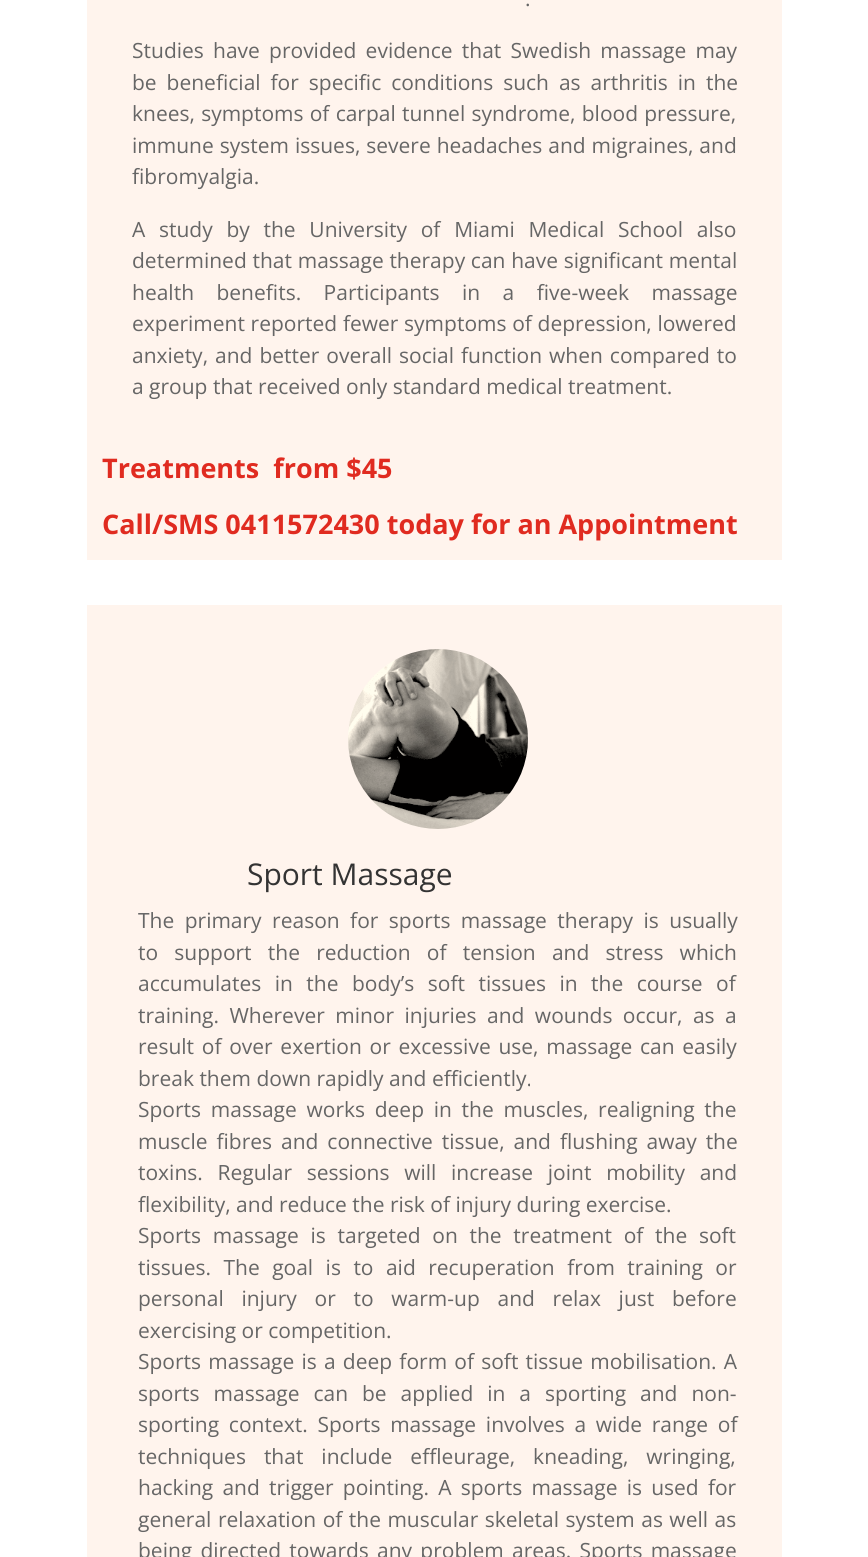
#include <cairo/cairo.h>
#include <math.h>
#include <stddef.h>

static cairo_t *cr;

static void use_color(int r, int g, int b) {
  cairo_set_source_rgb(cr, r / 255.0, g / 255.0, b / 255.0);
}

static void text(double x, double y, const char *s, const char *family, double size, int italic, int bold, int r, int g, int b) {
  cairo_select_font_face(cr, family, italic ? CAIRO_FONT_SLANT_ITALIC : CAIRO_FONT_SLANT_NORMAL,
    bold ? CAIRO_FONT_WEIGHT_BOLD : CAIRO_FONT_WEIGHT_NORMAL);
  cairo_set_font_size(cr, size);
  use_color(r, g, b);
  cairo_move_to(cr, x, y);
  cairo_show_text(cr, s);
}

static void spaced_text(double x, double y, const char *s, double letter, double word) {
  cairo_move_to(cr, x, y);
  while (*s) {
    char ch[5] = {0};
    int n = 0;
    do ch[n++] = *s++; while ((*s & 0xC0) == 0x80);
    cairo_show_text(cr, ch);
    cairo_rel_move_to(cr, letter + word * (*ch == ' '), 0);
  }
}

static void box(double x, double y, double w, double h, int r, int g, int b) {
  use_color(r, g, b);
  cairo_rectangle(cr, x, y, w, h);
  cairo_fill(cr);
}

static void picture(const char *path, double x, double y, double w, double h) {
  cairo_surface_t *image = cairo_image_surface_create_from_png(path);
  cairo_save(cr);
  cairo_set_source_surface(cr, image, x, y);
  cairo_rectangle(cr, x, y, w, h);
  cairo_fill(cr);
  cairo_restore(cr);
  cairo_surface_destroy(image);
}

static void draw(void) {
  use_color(255, 255, 255);
  cairo_paint(cr);
  box(87, 0, 695, 560, 255, 244, 237);
  box(87, 605, 695, 952, 255, 244, 237);
  picture("img_01.png", 348, 649, 180, 180);
  text(525, 6, ".", "Open Sans", 21, 0, 0, 102, 102, 102);
  spaced_text(132, 58, "Studies have provided evidence that Swedish massage may", 0, 3.75);
  spaced_text(132, 90, "be beneficial for specific conditions such as arthritis in the", 0, 4.5);
  spaced_text(132, 121, "knees, symptoms of carpal tunnel syndrome, blood pressure,", 0, 0.75);
  spaced_text(132, 153, "immune system issues, severe headaches and migraines, and", 0, 0.5);
  text(132, 184, "fibromyalgia.", "Open Sans", 21, 0, 0, 102, 102, 102);
  spaced_text(132, 237, "A study by the University of Miami Medical School also", 0, 8.25);
  spaced_text(132, 268, "determined that massage therapy can have significant mental", 0, 0.25);
  spaced_text(132, 300, "health benefits. Participants in a five-week massage", 0, 17);
  spaced_text(132, 331, "experiment reported fewer symptoms of depression, lowered", 0, 0.25);
  spaced_text(132, 363, "anxiety, and better overall social function when compared to", 0, 1.5);
  text(132, 394, "a group that received only standard medical treatment.", "Open Sans", 21, 0, 0, 102, 102, 102);
  text(102, 478, "Treatments  from $45", "Open Sans", 27, 0, 1, 224, 43, 32);
  text(102, 534, "Call/SMS 0411572430 today for an Appointment", "Open Sans", 27, 0, 1, 224, 43, 32);
  text(247, 885, "Sport Massage", "Open Sans", 30, 0, 0, 51, 51, 51);
  cairo_set_font_size(cr, 21);
  use_color(102, 102, 102);
  spaced_text(138, 928, "The primary reason for sports massage therapy is usually", 0, 5);
  spaced_text(138, 960, "to support the reduction of tension and stress which", 0, 10.75);
  spaced_text(138, 991, "accumulates in the body’s soft tissues in the course of", 0, 8);
  spaced_text(138, 1023, "training. Wherever minor injuries and wounds occur, as a", 0, 5);
  spaced_text(138, 1054, "result of over exertion or excessive use, massage can easily", 0, 2.25);
  text(138, 1086, "break them down rapidly and efficiently.", "Open Sans", 21, 0, 0, 102, 102, 102);
  spaced_text(138, 1117, "Sports massage works deep in the muscles, realigning the", 0, 4.25);
  spaced_text(138, 1149, "muscle fibres and connective tissue, and flushing away the", 0, 3.5);
  spaced_text(138, 1180, "toxins. Regular sessions will increase joint mobility and", 0, 9.25);
  text(138, 1212, "flexibility, and reduce the risk of injury during exercise.", "Open Sans", 21, 0, 0, 102, 102, 102);
  spaced_text(138, 1243, "Sports massage is targeted on the treatment of the soft", 0, 6.25);
  spaced_text(138, 1275, "tissues. The goal is to aid recuperation from training or", 0, 7);
  spaced_text(138, 1306, "personal injury or to warm-up and relax just before", 0, 12.25);
  text(138, 1338, "exercising or competition.", "Open Sans", 21, 0, 0, 102, 102, 102);
  spaced_text(138, 1369, "Sports massage is a deep form of soft tissue mobilisation. A", 0, 1.75);
  spaced_text(138, 1401, "sports massage can be applied in a sporting and non-", 0, 8.5);
  spaced_text(138, 1432, "sporting context. Sports massage involves a wide range of", 0, 4.25);
  spaced_text(138, 1464, "techniques that include effleurage, kneading, wringing,", 0, 12.5);
  spaced_text(138, 1495, "hacking and trigger pointing. A sports massage is used for", 0, 3.75);
  spaced_text(138, 1527, "general relaxation of the muscular skeletal system as well as", 0, 1);
  spaced_text(138, 1558, "being directed towards any problem areas. Sports massage", 0, 2.75);
}

int main(void) {
  cairo_surface_t *surface = cairo_image_surface_create(CAIRO_FORMAT_RGB24, 868, 1557);
  cr = cairo_create(surface);
  cairo_font_options_t *options = cairo_font_options_create();
  cairo_font_options_set_hint_metrics(options, CAIRO_HINT_METRICS_OFF);
  cairo_font_options_set_hint_style(options, CAIRO_HINT_STYLE_NONE);
  cairo_set_font_options(cr, options);
  cairo_set_miter_limit(cr, 4);
  draw();
  cairo_surface_write_to_png(surface, "out.png");
  cairo_font_options_destroy(options);
  cairo_destroy(cr);
  cairo_surface_destroy(surface);
  return 0;
}
